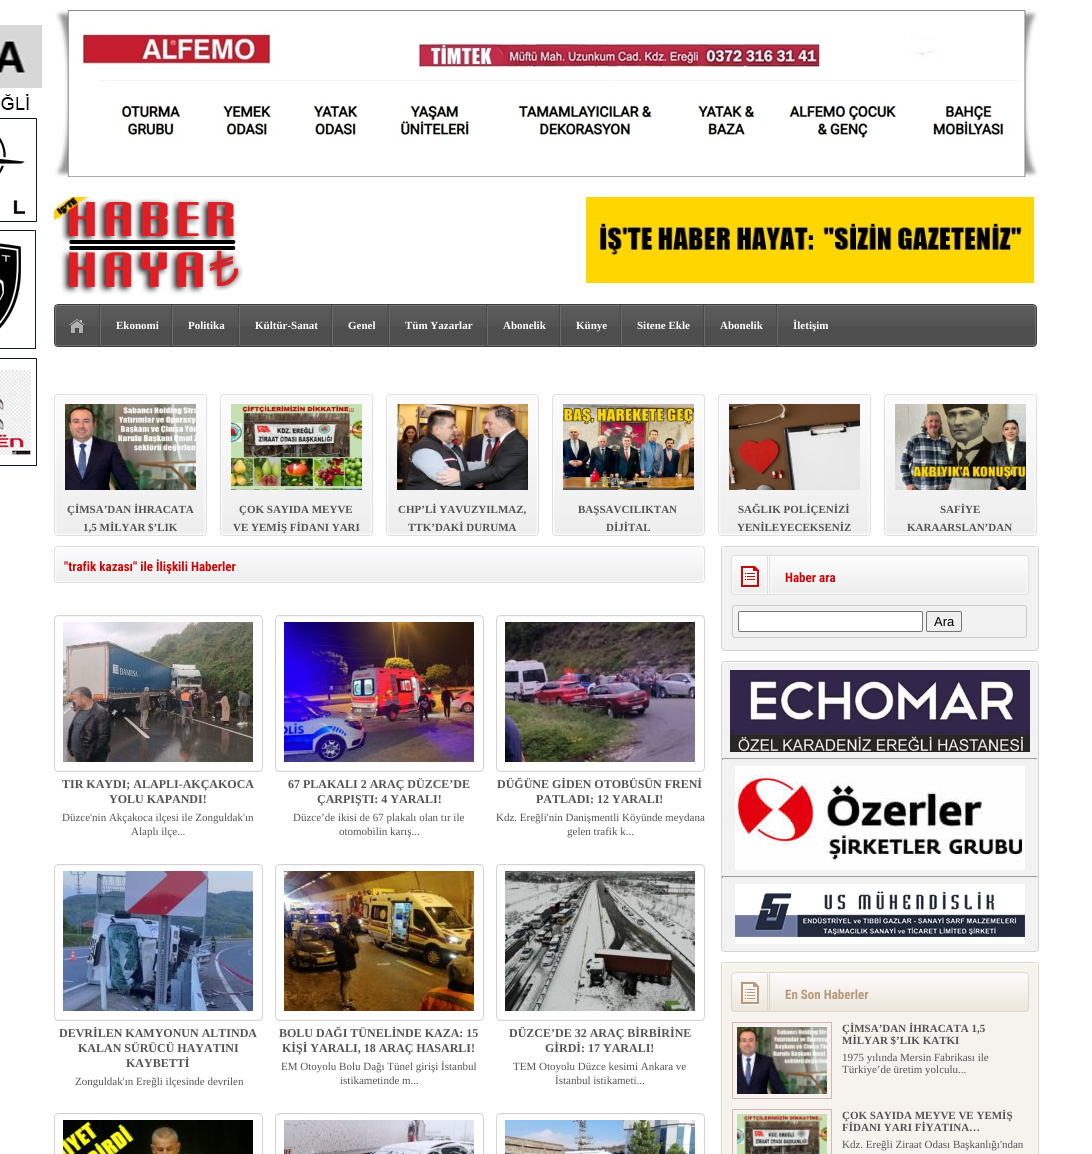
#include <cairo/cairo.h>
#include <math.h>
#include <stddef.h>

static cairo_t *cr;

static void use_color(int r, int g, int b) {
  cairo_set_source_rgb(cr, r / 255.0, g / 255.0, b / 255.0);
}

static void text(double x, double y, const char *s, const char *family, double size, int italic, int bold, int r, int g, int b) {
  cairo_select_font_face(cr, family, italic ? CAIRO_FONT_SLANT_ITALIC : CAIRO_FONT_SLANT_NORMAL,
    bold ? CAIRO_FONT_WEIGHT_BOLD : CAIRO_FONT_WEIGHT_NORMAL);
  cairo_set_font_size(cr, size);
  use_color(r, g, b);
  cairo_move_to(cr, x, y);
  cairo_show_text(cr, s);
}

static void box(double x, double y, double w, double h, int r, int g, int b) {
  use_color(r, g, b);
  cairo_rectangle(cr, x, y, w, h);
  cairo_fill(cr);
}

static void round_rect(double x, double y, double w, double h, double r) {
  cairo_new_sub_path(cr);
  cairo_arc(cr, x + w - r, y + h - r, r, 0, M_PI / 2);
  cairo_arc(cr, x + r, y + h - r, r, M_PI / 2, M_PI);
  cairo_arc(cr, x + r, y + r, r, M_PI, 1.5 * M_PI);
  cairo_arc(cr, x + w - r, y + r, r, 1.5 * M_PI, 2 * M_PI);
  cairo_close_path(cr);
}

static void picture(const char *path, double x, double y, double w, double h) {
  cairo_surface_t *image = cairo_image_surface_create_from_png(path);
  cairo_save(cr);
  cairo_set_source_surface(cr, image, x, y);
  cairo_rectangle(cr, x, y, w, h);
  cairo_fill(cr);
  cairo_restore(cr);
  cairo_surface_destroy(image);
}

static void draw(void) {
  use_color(255, 255, 255);
  cairo_paint(cr);
  picture("img_01.png", 0, 25, 42, 441);
  picture("img_02.png", 55, 10, 983, 167);
  picture("img_03.png", 54, 197, 189, 98);
  picture("img_04.png", 586, 197, 448, 86);
  picture("img_05.png", 54, 304, 983, 43);
  picture("img_06.png", 99, 305, 2, 41);
  picture("img_07.png", 69, 319, 17, 15);
  picture("img_06.png", 171, 305, 2, 41);
  picture("img_06.png", 238, 305, 2, 41);
  picture("img_06.png", 331, 305, 2, 41);
  picture("img_06.png", 388, 305, 2, 41);
  picture("img_06.png", 486, 305, 2, 41);
  picture("img_06.png", 559, 305, 2, 41);
  picture("img_06.png", 620, 305, 2, 41);
  picture("img_06.png", 703, 305, 2, 41);
  picture("img_06.png", 776, 305, 2, 41);
  picture("img_08.png", 54, 394, 153, 142);
  picture("img_09.png", 65, 404, 131, 86);
  picture("img_08.png", 220, 394, 153, 142);
  picture("img_10.png", 231, 404, 131, 86);
  picture("img_08.png", 386, 394, 153, 142);
  picture("img_11.png", 397, 404, 131, 86);
  picture("img_08.png", 552, 394, 153, 142);
  picture("img_12.png", 563, 404, 131, 86);
  picture("img_08.png", 718, 394, 153, 142);
  picture("img_13.png", 729, 404, 131, 86);
  picture("img_08.png", 884, 394, 153, 142);
  picture("img_14.png", 895, 404, 131, 86);
  picture("img_15.png", 54, 546, 651, 37);
  picture("img_16.png", 54, 615, 209, 157);
  picture("img_17.png", 63, 622, 190, 140);
  picture("img_16.png", 275, 615, 209, 157);
  picture("img_18.png", 284, 622, 190, 140);
  picture("img_16.png", 496, 615, 209, 157);
  picture("img_19.png", 505, 622, 190, 140);
  picture("img_16.png", 54, 864, 209, 157);
  picture("img_20.png", 63, 871, 190, 140);
  picture("img_16.png", 275, 864, 209, 157);
  picture("img_21.png", 284, 871, 190, 140);
  picture("img_16.png", 496, 864, 209, 157);
  picture("img_22.png", 505, 871, 190, 140);
  picture("img_23.png", 54, 1113, 209, 41);
  picture("img_24.png", 63, 1120, 190, 34);
  picture("img_23.png", 275, 1113, 209, 41);
  picture("img_25.png", 284, 1120, 190, 34);
  picture("img_23.png", 496, 1113, 209, 41);
  picture("img_26.png", 505, 1120, 190, 34);
  picture("img_27.png", 721, 546, 318, 9);
  box(722, 555, 316, 92, 242, 242, 242);
  box(1038, 555, 1, 92, 212, 212, 212);
  box(721, 555, 1, 92, 212, 212, 212);
  picture("img_28.png", 731, 555, 39, 40);
  picture("img_29.png", 770, 555, 259, 40);
  round_rect(732.5, 605.5, 294, 32, 2.5);
  use_color(204, 204, 204);
  cairo_set_line_width(cr, 1);
  cairo_stroke(cr);
  use_color(255, 255, 255);
  round_rect(738.5, 611.5, 184, 20, 1.5);
  cairo_fill_preserve(cr);
  use_color(118, 118, 118);
  cairo_stroke(cr);
  use_color(239, 239, 239);
  round_rect(926.5, 611.5, 35, 20, 1.5);
  cairo_fill_preserve(cr);
  use_color(118, 118, 118);
  cairo_stroke(cr);
  picture("img_30.png", 721, 647, 318, 4);
  picture("img_27.png", 721, 661, 318, 9);
  box(722, 670, 316, 278, 242, 242, 242);
  box(1038, 670, 1, 278, 212, 212, 212);
  box(721, 670, 1, 278, 212, 212, 212);
  picture("img_31.png", 730, 670, 300, 82);
  box(722, 758, 316, 1, 159, 159, 159);
  box(1037, 758, 1, 2, 238, 238, 238);
  box(722, 759, 316, 1, 238, 238, 238);
  box(722, 758, 1, 2, 159, 159, 159);
  picture("img_32.png", 735, 766, 290, 104);
  box(722, 876, 316, 1, 159, 159, 159);
  box(1037, 876, 1, 2, 238, 238, 238);
  box(722, 877, 316, 1, 238, 238, 238);
  box(722, 876, 1, 2, 159, 159, 159);
  picture("img_33.png", 735, 884, 290, 60);
  picture("img_30.png", 721, 948, 318, 4);
  picture("img_34.png", 721, 962, 318, 10);
  box(722, 972, 316, 182, 246, 243, 239);
  box(1038, 972, 1, 182, 224, 214, 200);
  box(721, 972, 1, 182, 224, 214, 200);
  picture("img_35.png", 731, 972, 39, 40);
  picture("img_36.png", 770, 972, 259, 40);
  cairo_rectangle(cr, 732.5, 1022.5, 99, 76);
  use_color(215, 181, 181);
  cairo_stroke(cr);
  picture("img_37.png", 737, 1027, 90, 67);
  cairo_rectangle(cr, 732.5, 1109.5, 99, 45);
  cairo_stroke(cr);
  picture("img_38.png", 737, 1114, 90, 40);
  text(116, 329, "Ekonomi", "Liberation Serif", 11, 0, 1, 255, 255, 255);
  text(188, 329, "Politika", "Liberation Serif", 11, 0, 1, 255, 255, 255);
  text(255, 329, "Kültür-Sanat", "Liberation Serif", 11, 0, 1, 255, 255, 255);
  text(348, 329, "Genel", "Liberation Serif", 11, 0, 1, 255, 255, 255);
  text(405, 329, "Tüm Yazarlar", "Liberation Serif", 11, 0, 1, 255, 255, 255);
  text(503, 329, "Abonelik", "Liberation Serif", 11, 0, 1, 255, 255, 255);
  text(576, 329, "Künye", "Liberation Serif", 11, 0, 1, 255, 255, 255);
  text(637, 329, "Sitene Ekle", "Liberation Serif", 11, 0, 1, 255, 255, 255);
  text(720, 329, "Abonelik", "Liberation Serif", 11, 0, 1, 255, 255, 255);
  text(793, 329, "İletişim", "Liberation Serif", 11, 0, 1, 255, 255, 255);
  text(67, 513, "ÇİMSA’DAN İHRACATA", "Liberation Serif", 11, 0, 1, 83, 83, 83);
  text(83, 531, "1,5 MİLYAR $’LIK", "Liberation Serif", 11, 0, 1, 83, 83, 83);
  text(239, 513, "ÇOK SAYIDA MEYVE", "Liberation Serif", 11, 0, 1, 83, 83, 83);
  text(233, 531, "VE YEMİŞ FİDANI YARI", "Liberation Serif", 11, 0, 1, 83, 83, 83);
  text(398, 513, "CHP’Lİ YAVUZYILMAZ,", "Liberation Serif", 11, 0, 1, 83, 83, 83);
  text(408, 531, "TTK’DAKİ DURUMA", "Liberation Serif", 11, 0, 1, 83, 83, 83);
  text(578, 513, "BAŞSAVCILIKTAN", "Liberation Serif", 11, 0, 1, 83, 83, 83);
  text(606, 531, "DİJİTAL", "Liberation Serif", 11, 0, 1, 83, 83, 83);
  text(738, 513, "SAĞLIK POLİÇENİZİ", "Liberation Serif", 11, 0, 1, 83, 83, 83);
  text(737, 531, "YENİLEYECEKSENİZ", "Liberation Serif", 11, 0, 1, 83, 83, 83);
  text(940, 513, "SAFİYE", "Liberation Serif", 11, 0, 1, 83, 83, 83);
  text(907, 531, "KARAARSLAN’DAN", "Liberation Serif", 11, 0, 1, 83, 83, 83);
  text(64, 571, "\"trafik kazası\" ile İlişkili Haberler", "Roboto Condensed", 13, 0, 1, 203, 7, 7);
  text(62, 788, "TIR KAYDI; ALAPLI-AKÇAKOCA", "Liberation Serif", 12, 0, 1, 83, 83, 83);
  text(109, 803, "YOLU KAPANDI!", "Liberation Serif", 12, 0, 1, 83, 83, 83);
  text(62, 821, "Düzce'nin Akçakoca ilçesi ile Zonguldak'ın", "Liberation Serif", 11, 0, 0, 83, 83, 83);
  text(131, 835, "Alaplı ilçe...", "Liberation Serif", 11, 0, 0, 83, 83, 83);
  text(288, 788, "67 PLAKALI 2 ARAÇ DÜZCE’DE", "Liberation Serif", 12, 0, 1, 83, 83, 83);
  text(317, 803, "ÇARPIŞTI: 4 YARALI!", "Liberation Serif", 12, 0, 1, 83, 83, 83);
  text(293, 821, "Düzce’de ikisi de 67 plakalı olan tır ile", "Liberation Serif", 11, 0, 0, 83, 83, 83);
  text(339, 835, "otomobilin karış...", "Liberation Serif", 11, 0, 0, 83, 83, 83);
  text(497, 788, "DÜĞÜNE GİDEN OTOBÜSÜN FRENİ", "Liberation Serif", 12, 0, 1, 83, 83, 83);
  text(536, 803, "PATLADI: 12 YARALI!", "Liberation Serif", 12, 0, 1, 83, 83, 83);
  text(496, 821, "Kdz. Ereğli'nin Danişmentli Köyünde meydana", "Liberation Serif", 11, 0, 0, 83, 83, 83);
  text(567, 835, "gelen trafik k...", "Liberation Serif", 11, 0, 0, 83, 83, 83);
  text(59, 1037, "DEVRİLEN KAMYONUN ALTINDA", "Liberation Serif", 12, 0, 1, 83, 83, 83);
  text(78, 1052, "KALAN SÜRÜCÜ HAYATINI", "Liberation Serif", 12, 0, 1, 83, 83, 83);
  text(126, 1067, "KAYBETTİ", "Liberation Serif", 12, 0, 1, 83, 83, 83);
  text(75, 1085, "Zonguldak'ın Ereğli ilçesinde devrilen", "Liberation Serif", 11, 0, 0, 83, 83, 83);
  text(279, 1037, "BOLU DAĞI TÜNELİNDE KAZA: 15", "Liberation Serif", 12, 0, 1, 83, 83, 83);
  text(282, 1052, "KİŞİ YARALI, 18 ARAÇ HASARLI!", "Liberation Serif", 12, 0, 1, 83, 83, 83);
  text(281, 1070, "EM Otoyolu Bolu Dağı Tünel girişi İstanbul", "Liberation Serif", 11, 0, 0, 83, 83, 83);
  text(340, 1084, "istikametinde m...", "Liberation Serif", 11, 0, 0, 83, 83, 83);
  text(509, 1037, "DÜZCE’DE 32 ARAÇ BİRBİRİNE", "Liberation Serif", 12, 0, 1, 83, 83, 83);
  text(545, 1052, "GİRDİ: 17 YARALI!", "Liberation Serif", 12, 0, 1, 83, 83, 83);
  text(513, 1070, "TEM Otoyolu Düzce kesimi Ankara ve", "Liberation Serif", 11, 0, 0, 83, 83, 83);
  text(555, 1084, "İstanbul istikameti...", "Liberation Serif", 11, 0, 0, 83, 83, 83);
  text(785, 582, "Haber ara", "Roboto Condensed", 13, 0, 1, 203, 7, 7);
  text(934, 626, "Ara", "Liberation Sans", 13, 0, 0, 0, 0, 0);
  text(785, 999, "En Son Haberler", "Roboto Condensed", 13, 0, 1, 184, 153, 123);
  text(842, 1032, "ÇİMSA’DAN İHRACATA 1,5", "Liberation Serif", 11, 0, 1, 83, 83, 83);
  cairo_save(cr);
  cairo_rectangle(cr, 842, 1022, 183, 72);
  cairo_clip(cr);
  text(842, 1044, "MİLYAR $’LIK KATKI", "Liberation Serif", 11, 0, 1, 83, 83, 83);
  cairo_restore(cr);
  text(842, 1061, "1975 yılında Mersin Fabrikası ile", "Liberation Serif", 11, 0, 0, 83, 83, 83);
  text(842, 1073, "Türkiye’de üretim yolculu...", "Liberation Serif", 11, 0, 0, 83, 83, 83);
  text(842, 1119, "ÇOK SAYIDA MEYVE VE YEMİŞ", "Liberation Serif", 11, 0, 1, 83, 83, 83);
  cairo_save(cr);
  cairo_rectangle(cr, 842, 1109, 183, 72);
  cairo_clip(cr);
  text(842, 1131, "FİDANI YARI FİYATINA…", "Liberation Serif", 11, 0, 1, 83, 83, 83);
  cairo_restore(cr);
  text(842, 1148, "Kdz. Ereğli Ziraat Odası Başkanlığı'ndan", "Liberation Serif", 11, 0, 0, 83, 83, 83);
}

int main(void) {
  cairo_surface_t *surface = cairo_image_surface_create(CAIRO_FORMAT_RGB24, 1092, 1154);
  cr = cairo_create(surface);
  cairo_font_options_t *options = cairo_font_options_create();
  cairo_font_options_set_hint_metrics(options, CAIRO_HINT_METRICS_OFF);
  cairo_font_options_set_hint_style(options, CAIRO_HINT_STYLE_NONE);
  cairo_set_font_options(cr, options);
  cairo_set_miter_limit(cr, 4);
  draw();
  cairo_surface_write_to_png(surface, "out.png");
  cairo_font_options_destroy(options);
  cairo_destroy(cr);
  cairo_surface_destroy(surface);
  return 0;
}
